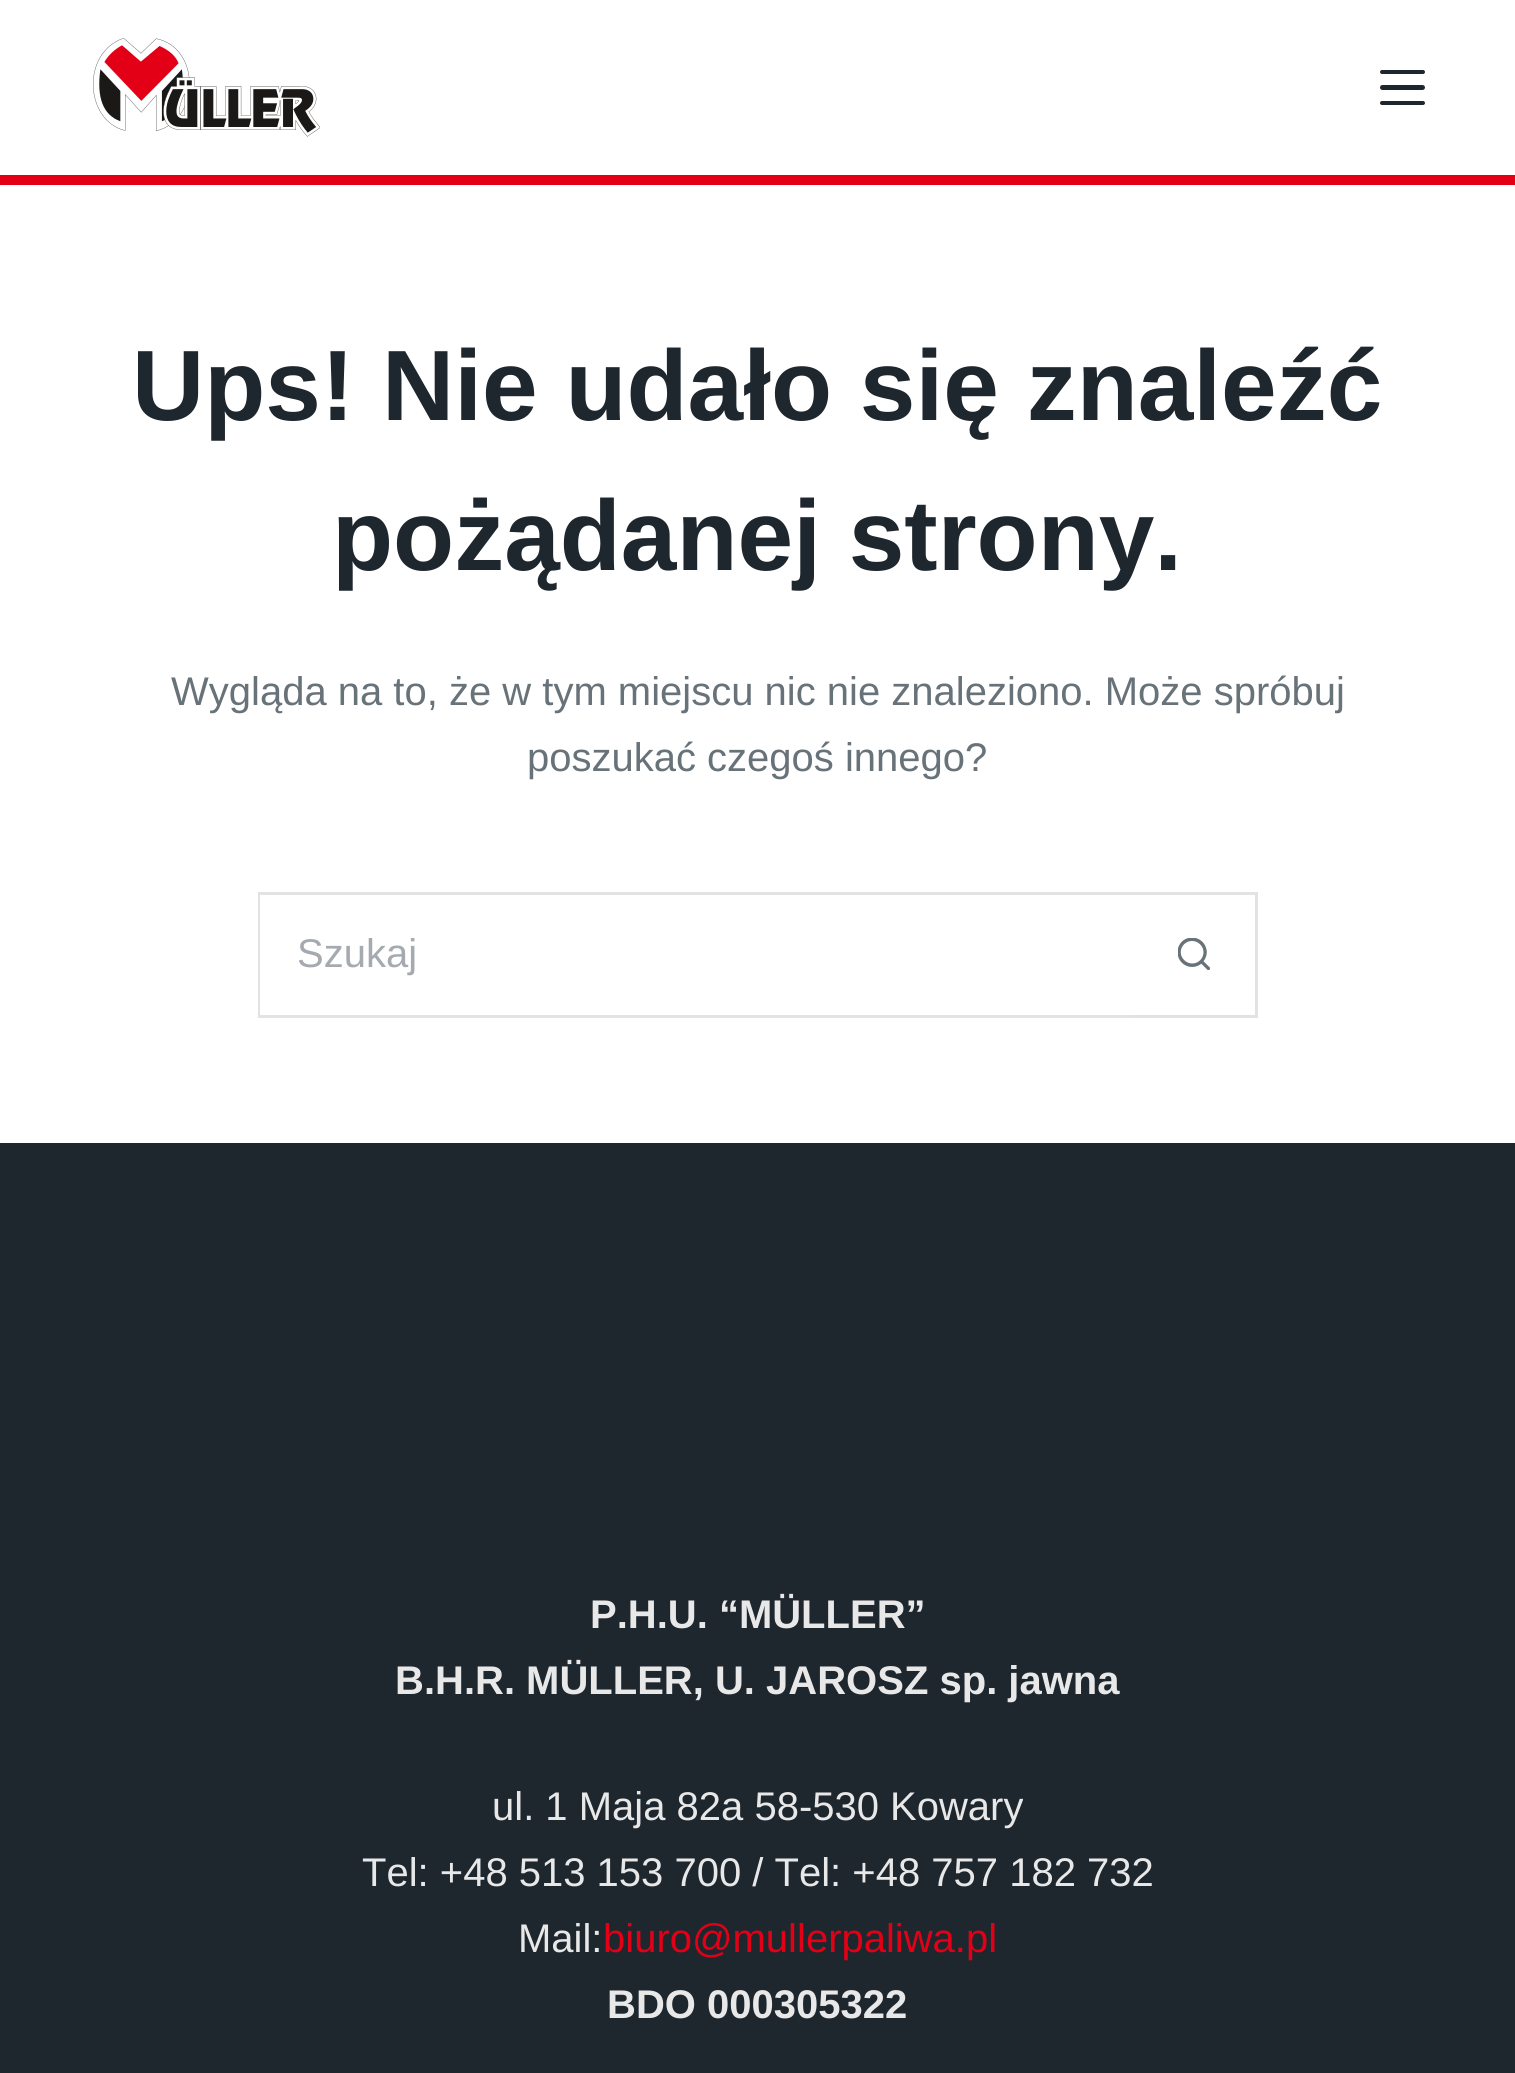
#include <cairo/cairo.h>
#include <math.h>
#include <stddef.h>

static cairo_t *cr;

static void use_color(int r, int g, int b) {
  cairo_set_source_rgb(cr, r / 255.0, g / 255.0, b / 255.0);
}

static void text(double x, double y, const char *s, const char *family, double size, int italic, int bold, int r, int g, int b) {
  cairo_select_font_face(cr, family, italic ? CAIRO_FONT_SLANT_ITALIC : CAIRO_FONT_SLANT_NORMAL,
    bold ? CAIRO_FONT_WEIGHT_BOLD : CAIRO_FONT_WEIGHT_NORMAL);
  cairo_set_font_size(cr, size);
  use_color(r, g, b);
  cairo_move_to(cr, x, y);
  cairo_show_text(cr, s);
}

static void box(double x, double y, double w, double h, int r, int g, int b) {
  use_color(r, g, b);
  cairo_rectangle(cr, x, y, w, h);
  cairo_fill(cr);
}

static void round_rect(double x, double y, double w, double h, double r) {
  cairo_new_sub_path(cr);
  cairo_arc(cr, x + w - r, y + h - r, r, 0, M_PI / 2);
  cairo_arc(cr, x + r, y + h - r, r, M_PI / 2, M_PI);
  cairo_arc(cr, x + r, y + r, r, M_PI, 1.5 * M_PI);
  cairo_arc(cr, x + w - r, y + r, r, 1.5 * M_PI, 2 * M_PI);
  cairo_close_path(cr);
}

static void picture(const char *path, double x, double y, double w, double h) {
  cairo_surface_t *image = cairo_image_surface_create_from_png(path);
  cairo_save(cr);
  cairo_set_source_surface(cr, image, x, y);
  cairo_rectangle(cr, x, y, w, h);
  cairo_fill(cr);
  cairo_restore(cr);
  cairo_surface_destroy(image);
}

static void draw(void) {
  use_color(255, 255, 255);
  cairo_paint(cr);
  box(0, 175, 1515, 10, 227, 0, 23);
  picture("img_01.png", 93, 38, 227, 99);
  use_color(30, 38, 46);
  round_rect(1380, 70, 45, 4, 2);
  cairo_fill(cr);
  round_rect(1380, 85, 45, 5, 2.5);
  cairo_fill(cr);
  round_rect(1380, 101, 45, 4, 2);
  cairo_fill(cr);
  use_color(225, 227, 228);
  cairo_new_path(cr);
  cairo_move_to(cr, 258, 892);
  cairo_line_to(cr, 1132, 892);
  cairo_line_to(cr, 1132, 895);
  cairo_line_to(cr, 260, 895);
  cairo_close_path(cr);
  cairo_fill(cr);
  cairo_new_path(cr);
  cairo_move_to(cr, 1132, 1018);
  cairo_line_to(cr, 258, 1018);
  cairo_line_to(cr, 260, 1015);
  cairo_line_to(cr, 1132, 1015);
  cairo_close_path(cr);
  cairo_fill(cr);
  cairo_set_source_rgba(cr, 0.404, 0.443, 0.471, 0.2);
  cairo_new_path(cr);
  cairo_move_to(cr, 258, 1018);
  cairo_line_to(cr, 258, 892);
  cairo_line_to(cr, 260, 895);
  cairo_line_to(cr, 260, 1015);
  cairo_close_path(cr);
  cairo_fill(cr);
  use_color(225, 227, 228);
  cairo_new_path(cr);
  cairo_move_to(cr, 1132, 892);
  cairo_line_to(cr, 1258, 892);
  cairo_line_to(cr, 1255, 895);
  cairo_line_to(cr, 1132, 895);
  cairo_close_path(cr);
  cairo_fill(cr);
  cairo_set_source_rgba(cr, 0.404, 0.443, 0.471, 0.2);
  cairo_new_path(cr);
  cairo_move_to(cr, 1258, 892);
  cairo_line_to(cr, 1258, 1018);
  cairo_line_to(cr, 1255, 1015);
  cairo_line_to(cr, 1255, 895);
  cairo_close_path(cr);
  cairo_fill(cr);
  cairo_new_path(cr);
  cairo_move_to(cr, 1258, 1018);
  cairo_line_to(cr, 1132, 1018);
  cairo_line_to(cr, 1132, 1015);
  cairo_line_to(cr, 1255, 1015);
  cairo_close_path(cr);
  cairo_fill(cr);
  picture("img_02.png", 1178, 938, 32, 32);
  box(0, 1143, 1515, 930, 30, 38, 46);
  text(132, 420, "Ups! Nie udało się znaleźć", "Liberation Sans", 100, 0, 1, 30, 38, 46);
  text(332, 570, "pożądanej strony.", "Liberation Sans", 100, 0, 1, 30, 38, 46);
  text(171, 705, "Wygląda na to, że w tym miejscu nic nie znaleziono. Może spróbuj", "Liberation Sans", 40, 0, 0, 104, 114, 121);
  text(527, 771, "poszukać czegoś innego?", "Liberation Sans", 40, 0, 0, 104, 114, 121);
  text(297, 967, "Szukaj", "Liberation Sans", 40, 0, 0, 164, 170, 175);
  text(590, 1628, "P.H.U. “MÜLLER”", "Liberation Sans", 40, 0, 1, 232, 232, 232);
  text(395, 1694, "B.H.R. MÜLLER, U. JAROSZ sp. jawna", "Liberation Sans", 40, 0, 1, 232, 232, 232);
  text(492, 1820, "ul. 1 Maja 82a 58-530 Kowary", "Liberation Sans", 40, 0, 0, 232, 232, 232);
  text(362, 1886, "Tel: +48 513 153 700 / Tel: +48 757 182 732", "Liberation Sans", 40, 0, 0, 232, 232, 232);
  text(518, 1952, "Mail:", "Liberation Sans", 40, 0, 0, 232, 232, 232);
  text(603, 1952, "biuro@mullerpaliwa.pl", "Liberation Sans", 40, 0, 0, 227, 0, 23);
  text(607, 2018, "BDO 000305322", "Liberation Sans", 40, 0, 1, 232, 232, 232);
}

int main(void) {
  cairo_surface_t *surface = cairo_image_surface_create(CAIRO_FORMAT_RGB24, 1515, 2073);
  cr = cairo_create(surface);
  cairo_font_options_t *options = cairo_font_options_create();
  cairo_font_options_set_hint_metrics(options, CAIRO_HINT_METRICS_OFF);
  cairo_font_options_set_hint_style(options, CAIRO_HINT_STYLE_NONE);
  cairo_set_font_options(cr, options);
  cairo_set_miter_limit(cr, 4);
  draw();
  cairo_surface_write_to_png(surface, "out.png");
  cairo_font_options_destroy(options);
  cairo_destroy(cr);
  cairo_surface_destroy(surface);
  return 0;
}
